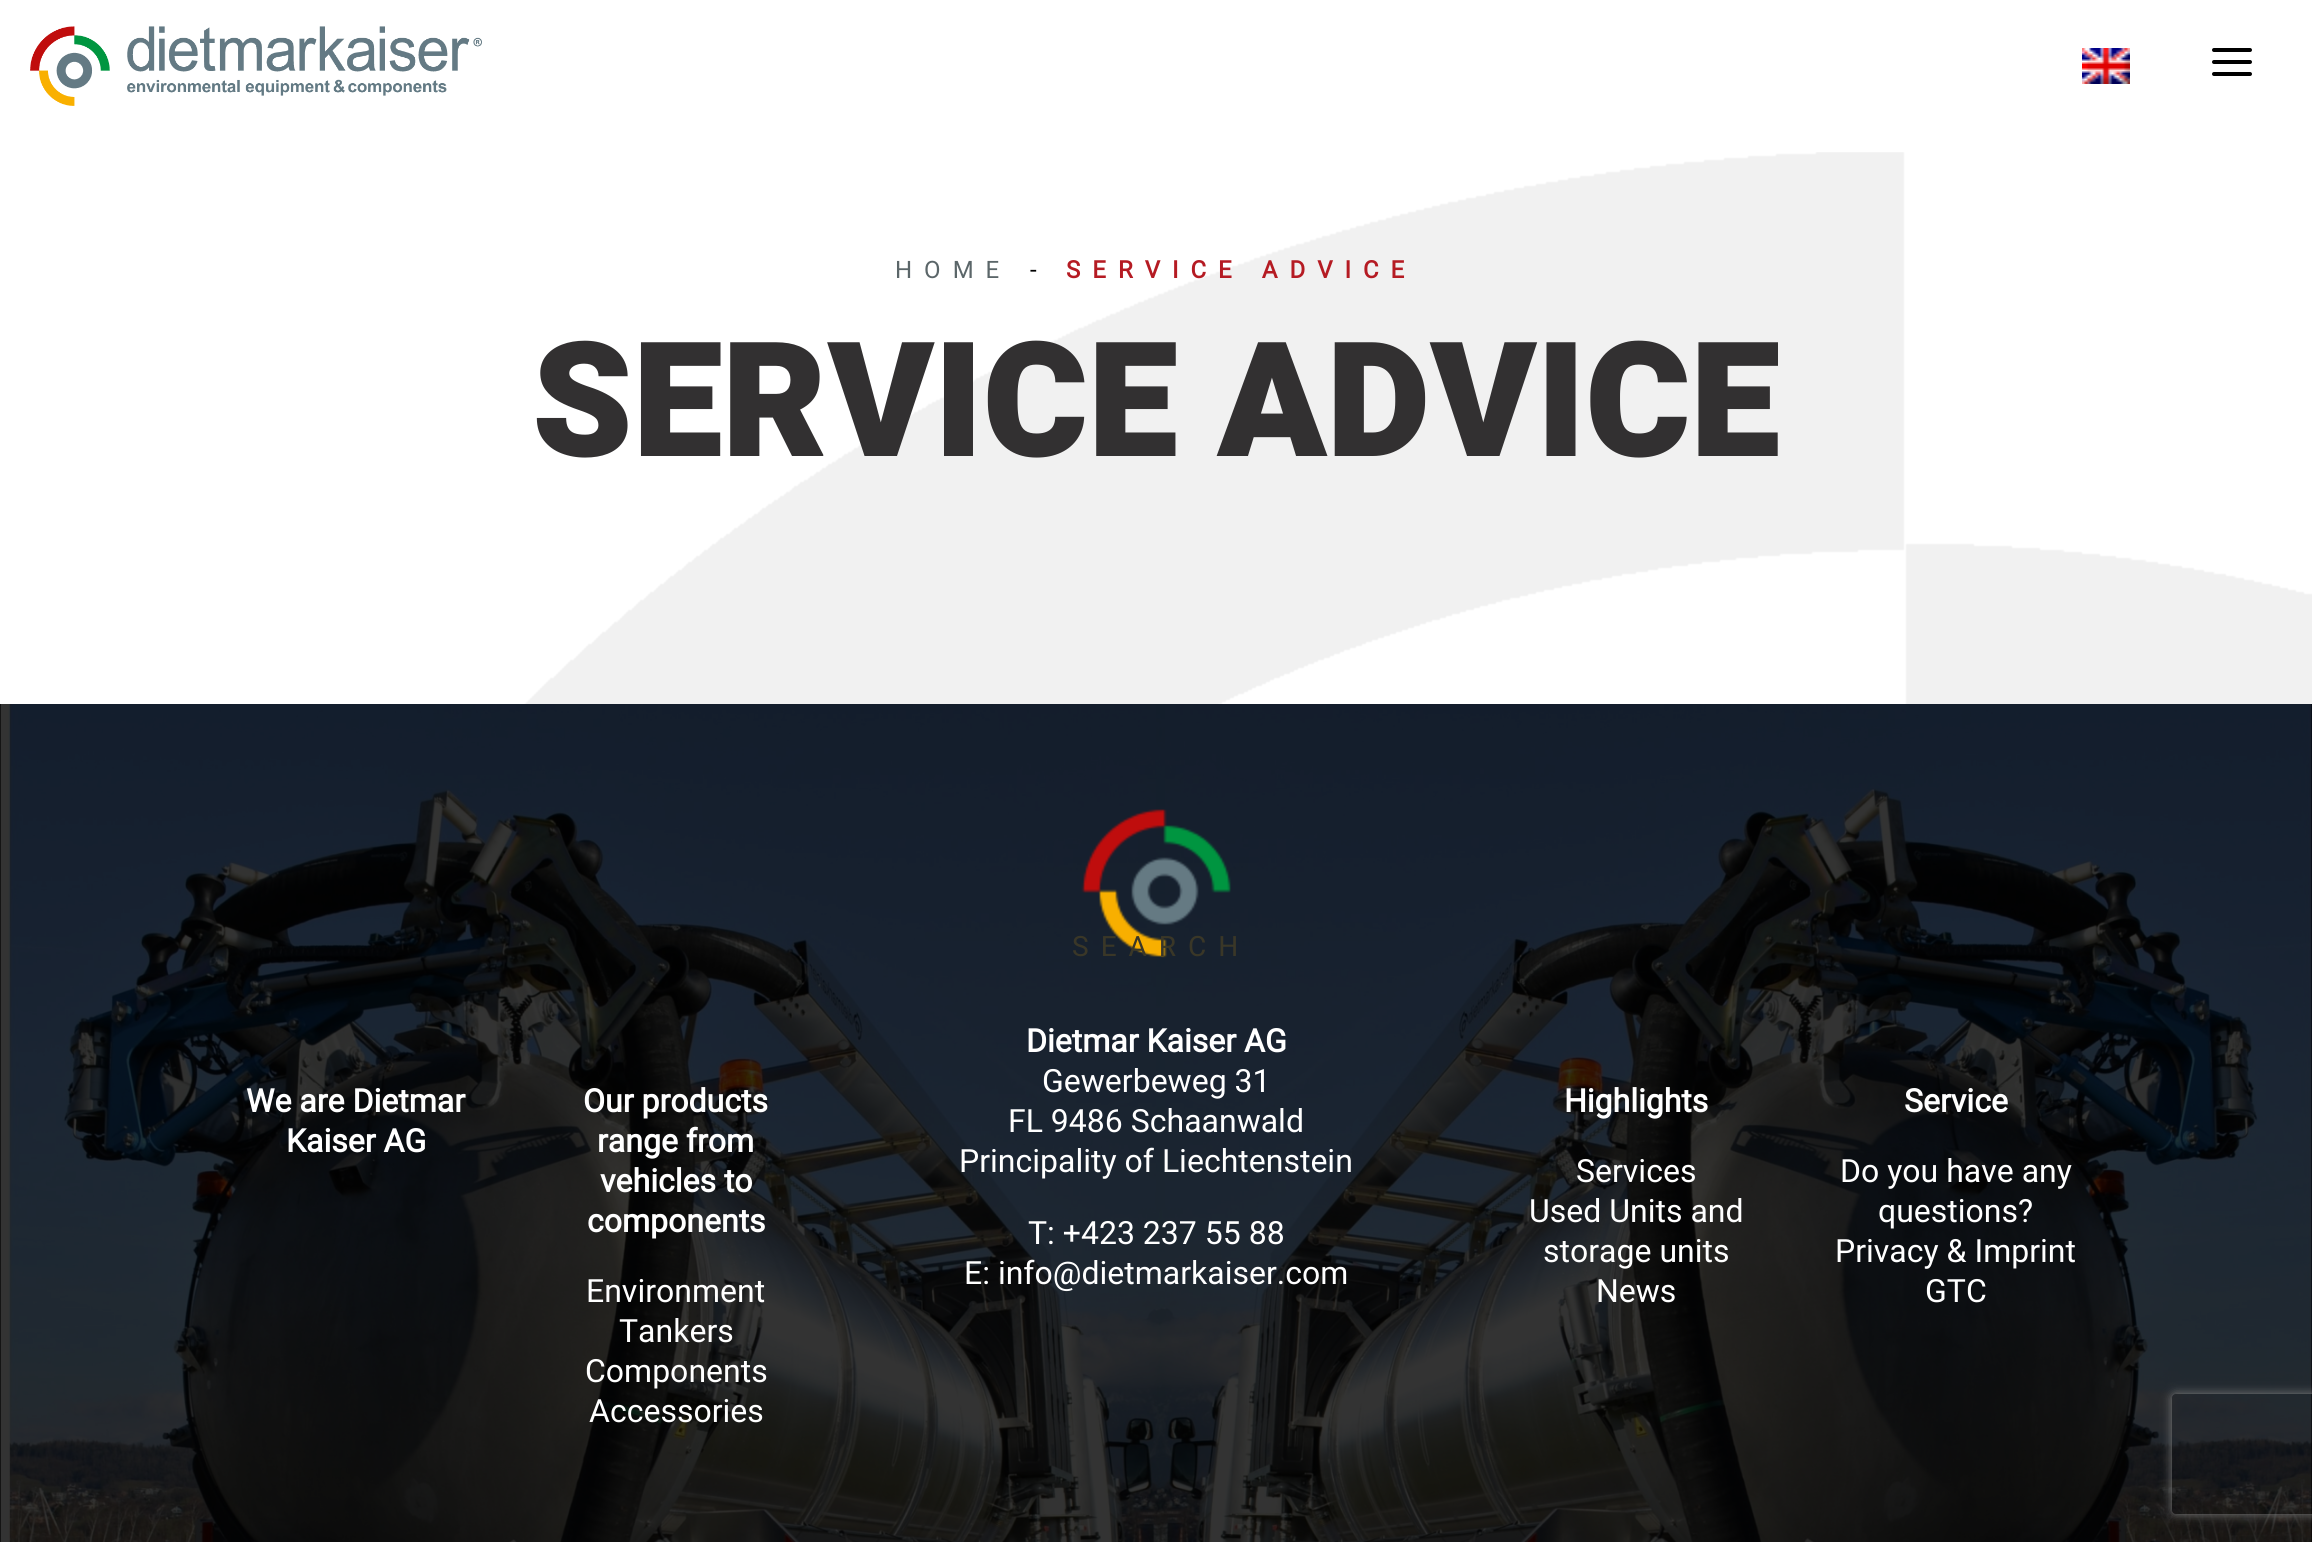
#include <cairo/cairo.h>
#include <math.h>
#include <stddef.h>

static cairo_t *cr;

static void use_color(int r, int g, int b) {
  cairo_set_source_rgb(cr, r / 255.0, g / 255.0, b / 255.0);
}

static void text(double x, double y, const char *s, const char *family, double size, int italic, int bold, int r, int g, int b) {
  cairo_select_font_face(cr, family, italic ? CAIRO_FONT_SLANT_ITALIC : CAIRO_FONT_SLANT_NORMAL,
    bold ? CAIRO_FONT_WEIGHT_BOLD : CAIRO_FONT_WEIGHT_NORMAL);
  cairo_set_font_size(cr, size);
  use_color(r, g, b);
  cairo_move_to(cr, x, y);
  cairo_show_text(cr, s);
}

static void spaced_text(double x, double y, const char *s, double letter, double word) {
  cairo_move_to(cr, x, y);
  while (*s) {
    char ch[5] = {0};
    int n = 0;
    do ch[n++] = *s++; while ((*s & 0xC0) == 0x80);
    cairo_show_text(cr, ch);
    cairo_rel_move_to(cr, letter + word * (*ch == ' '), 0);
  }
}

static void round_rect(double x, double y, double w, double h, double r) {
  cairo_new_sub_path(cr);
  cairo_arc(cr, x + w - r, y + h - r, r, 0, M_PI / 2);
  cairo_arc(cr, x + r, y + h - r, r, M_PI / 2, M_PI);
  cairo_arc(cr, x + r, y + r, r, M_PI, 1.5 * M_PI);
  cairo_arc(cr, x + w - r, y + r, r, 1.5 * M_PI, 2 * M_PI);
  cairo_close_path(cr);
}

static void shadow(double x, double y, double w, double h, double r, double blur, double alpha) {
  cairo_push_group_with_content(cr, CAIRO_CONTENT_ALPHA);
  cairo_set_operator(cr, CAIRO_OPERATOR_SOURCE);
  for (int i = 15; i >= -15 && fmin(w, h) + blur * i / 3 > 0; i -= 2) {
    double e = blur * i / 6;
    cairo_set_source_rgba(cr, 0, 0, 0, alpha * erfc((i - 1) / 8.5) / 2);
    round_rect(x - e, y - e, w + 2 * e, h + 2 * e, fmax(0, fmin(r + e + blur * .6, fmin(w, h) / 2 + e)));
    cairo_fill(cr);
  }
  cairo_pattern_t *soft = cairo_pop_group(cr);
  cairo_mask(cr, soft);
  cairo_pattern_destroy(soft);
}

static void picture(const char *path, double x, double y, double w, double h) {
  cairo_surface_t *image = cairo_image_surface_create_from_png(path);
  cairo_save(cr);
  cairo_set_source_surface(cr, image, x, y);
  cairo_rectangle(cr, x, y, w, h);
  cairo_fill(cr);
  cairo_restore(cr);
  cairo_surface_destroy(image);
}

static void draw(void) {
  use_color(255, 255, 255);
  cairo_paint(cr);
  picture("img_01.png", 523, 152, 1789, 552);
  picture("img_02.png", 30, 26, 452, 80);
  picture("img_03.png", 2082, 48, 48, 36);
  cairo_new_path(cr);
  cairo_move_to(cr, 2214, 62);
  cairo_line_to(cr, 2250, 62);
  cairo_move_to(cr, 2214, 50);
  cairo_line_to(cr, 2250, 50);
  cairo_move_to(cr, 2214, 74);
  cairo_line_to(cr, 2250, 74);
  use_color(0, 0, 0);
  cairo_set_line_width(cr, 4);
  cairo_set_line_cap(cr, CAIRO_LINE_CAP_ROUND);
  cairo_set_line_join(cr, CAIRO_LINE_JOIN_ROUND);
  cairo_stroke(cr);
  picture("img_04.png", 0, 704, 2312, 838);
  picture("img_05.png", 1081, 809, 150, 149);
  cairo_save(cr);
  cairo_set_fill_rule(cr, CAIRO_FILL_RULE_EVEN_ODD);
  cairo_new_path(cr);
  cairo_move_to(cr, 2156, 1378);
  cairo_line_to(cr, 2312, 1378);
  cairo_line_to(cr, 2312, 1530);
  cairo_line_to(cr, 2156, 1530);
  cairo_close_path(cr);
  cairo_move_to(cr, 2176, 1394);
  cairo_line_to(cr, 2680, 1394);
  cairo_curve_to(cr, 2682, 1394, 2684, 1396, 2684, 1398);
  cairo_line_to(cr, 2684, 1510);
  cairo_curve_to(cr, 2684, 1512, 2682, 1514, 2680, 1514);
  cairo_line_to(cr, 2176, 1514);
  cairo_curve_to(cr, 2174, 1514, 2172, 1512, 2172, 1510);
  cairo_line_to(cr, 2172, 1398);
  cairo_curve_to(cr, 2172, 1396, 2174, 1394, 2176, 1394);
  cairo_close_path(cr);
  cairo_clip(cr);
  use_color(128, 128, 128);
  shadow(2172, 1394, 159, 120, 4, 5, 1);
  cairo_restore(cr);
  cairo_select_font_face(cr, "Heebo", CAIRO_FONT_SLANT_NORMAL, CAIRO_FONT_WEIGHT_NORMAL);
  cairo_set_font_size(cr, 24);
  use_color(91, 102, 105);
  spaced_text(895, 278, "HOME", 12, 0);
  use_color(0, 0, 0);
  spaced_text(1030, 278, "-", 12, 0);
  cairo_select_font_face(cr, "Heebo", CAIRO_FONT_SLANT_NORMAL, CAIRO_FONT_WEIGHT_BOLD);
  use_color(181, 27, 35);
  spaced_text(1066, 278, "SERVICE ADVICE", 12, 0);
  text(532, 456, "SERVICE ADVICE", "Heebo Black", 160, 0, 0, 50, 48, 49);
  cairo_select_font_face(cr, "Heebo", CAIRO_FONT_SLANT_NORMAL, CAIRO_FONT_WEIGHT_NORMAL);
  cairo_set_font_size(cr, 28);
  use_color(58, 55, 39);
  spaced_text(1072, 956, "SEARCH", 12, 0);
  text(246, 1112, "We are Dietmar", "Heebo", 32, 0, 1, 255, 255, 255);
  text(286, 1152, "Kaiser AG", "Heebo", 32, 0, 1, 255, 255, 255);
  text(583, 1112, "Our products", "Heebo", 32, 0, 1, 255, 255, 255);
  text(597, 1152, "range from", "Heebo", 32, 0, 1, 255, 255, 255);
  text(600, 1192, "vehicles to", "Heebo", 32, 0, 1, 255, 255, 255);
  text(587, 1232, "components", "Heebo", 32, 0, 1, 255, 255, 255);
  text(586, 1302, "Environment", "Heebo", 32, 0, 0, 255, 255, 255);
  text(619, 1342, "Tankers", "Heebo", 32, 0, 0, 255, 255, 255);
  text(585, 1382, "Components", "Heebo", 32, 0, 0, 255, 255, 255);
  text(589, 1422, "Accessories", "Heebo", 32, 0, 0, 255, 255, 255);
  text(1026, 1052, "Dietmar Kaiser AG", "Heebo", 32, 0, 1, 255, 255, 255);
  text(1042, 1092, "Gewerbeweg 31", "Heebo", 32, 0, 0, 255, 255, 255);
  text(1008, 1132, "FL 9486 Schaanwald", "Heebo", 32, 0, 0, 255, 255, 255);
  text(959, 1172, "Principality of Liechtenstein", "Heebo", 32, 0, 0, 255, 255, 255);
  text(1028, 1244, "T: +423 237 55 88", "Heebo", 32, 0, 0, 255, 255, 255);
  text(964, 1284, "E: info@dietmarkaiser.com", "Heebo", 32, 0, 0, 255, 255, 255);
  text(1564, 1112, "Highlights", "Heebo", 32, 0, 1, 255, 255, 255);
  text(1576, 1182, "Services", "Heebo", 32, 0, 0, 255, 255, 255);
  text(1529, 1222, "Used Units and", "Heebo", 32, 0, 0, 255, 255, 255);
  text(1543, 1262, "storage units", "Heebo", 32, 0, 0, 255, 255, 255);
  text(1596, 1302, "News", "Heebo", 32, 0, 0, 255, 255, 255);
  text(1904, 1112, "Service", "Heebo", 32, 0, 1, 255, 255, 255);
  text(1840, 1182, "Do you have any", "Heebo", 32, 0, 0, 255, 255, 255);
  text(1878, 1222, "questions?", "Heebo", 32, 0, 0, 255, 255, 255);
  text(1835, 1262, "Privacy & Imprint", "Heebo", 32, 0, 0, 255, 255, 255);
  text(1925, 1302, "GTC", "Heebo", 32, 0, 0, 255, 255, 255);
}

int main(void) {
  cairo_surface_t *surface = cairo_image_surface_create(CAIRO_FORMAT_RGB24, 2312, 1542);
  cr = cairo_create(surface);
  cairo_font_options_t *options = cairo_font_options_create();
  cairo_font_options_set_hint_metrics(options, CAIRO_HINT_METRICS_OFF);
  cairo_font_options_set_hint_style(options, CAIRO_HINT_STYLE_NONE);
  cairo_set_font_options(cr, options);
  cairo_set_miter_limit(cr, 4);
  draw();
  cairo_surface_write_to_png(surface, "out.png");
  cairo_font_options_destroy(options);
  cairo_destroy(cr);
  cairo_surface_destroy(surface);
  return 0;
}
